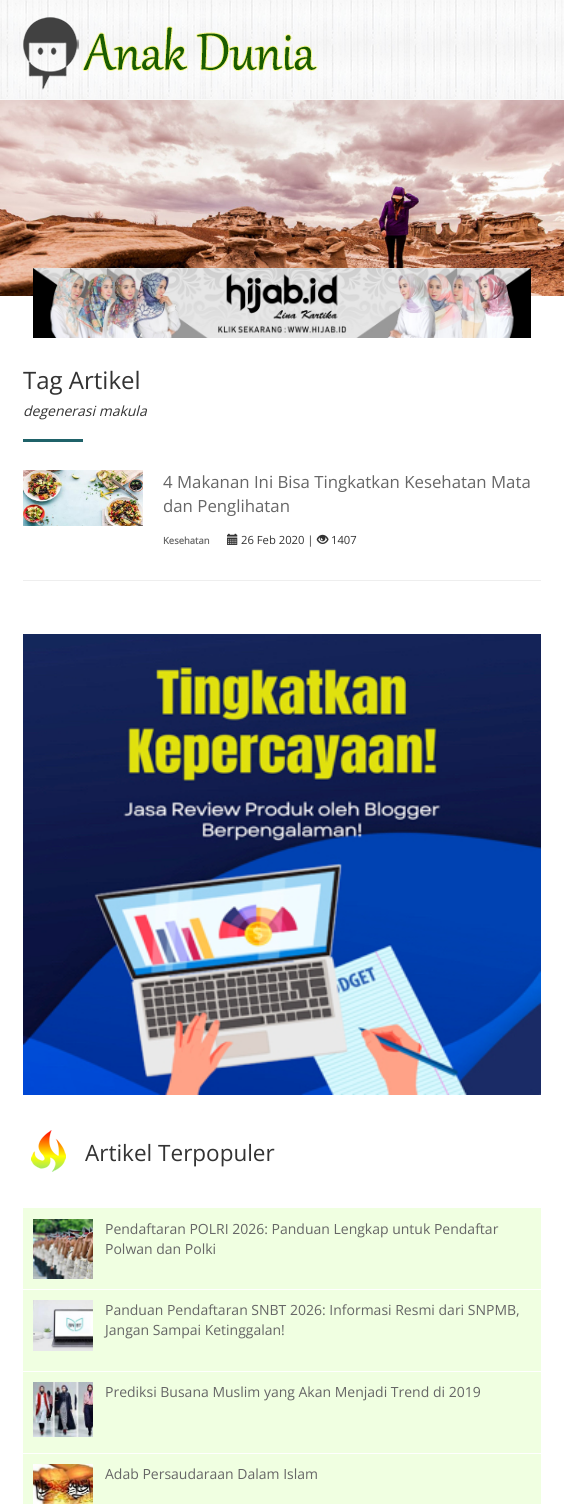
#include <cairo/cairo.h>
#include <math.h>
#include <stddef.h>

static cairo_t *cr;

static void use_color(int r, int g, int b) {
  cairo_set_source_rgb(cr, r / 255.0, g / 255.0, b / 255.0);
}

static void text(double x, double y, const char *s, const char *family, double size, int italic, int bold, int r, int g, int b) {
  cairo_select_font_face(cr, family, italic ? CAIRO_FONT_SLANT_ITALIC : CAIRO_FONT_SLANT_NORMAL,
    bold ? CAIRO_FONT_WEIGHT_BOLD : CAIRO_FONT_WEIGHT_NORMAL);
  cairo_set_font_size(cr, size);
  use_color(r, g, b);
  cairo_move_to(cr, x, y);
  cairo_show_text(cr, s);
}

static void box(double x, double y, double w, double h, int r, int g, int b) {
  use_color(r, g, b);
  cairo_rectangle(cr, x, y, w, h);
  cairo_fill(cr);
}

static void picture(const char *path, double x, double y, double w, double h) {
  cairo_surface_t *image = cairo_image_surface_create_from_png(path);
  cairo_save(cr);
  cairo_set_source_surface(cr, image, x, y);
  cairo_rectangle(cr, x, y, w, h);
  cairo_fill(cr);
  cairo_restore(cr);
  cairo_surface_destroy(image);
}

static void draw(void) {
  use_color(255, 255, 255);
  cairo_paint(cr);
  picture("img_01.png", 0, 0, 564, 99);
  box(0, 99, 564, 1, 249, 249, 249);
  picture("img_02.png", 23, 17, 295, 73);
  picture("img_03.png", 0, 100, 564, 196);
  picture("img_04.png", 33, 268, 498, 70);
  box(23, 439, 60, 3, 31, 98, 105);
  box(23, 580, 518, 1, 238, 238, 238);
  picture("img_05.png", 23, 470, 120, 56);
  picture("img_06.png", 227, 533, 11, 12);
  picture("img_07.png", 316, 534, 13, 10);
  picture("img_08.png", 23, 634, 518, 461);
  picture("img_09.png", 31, 1130, 35, 42);
  box(23, 1208, 518, 81, 240, 255, 225);
  picture("img_10.png", 33, 1219, 60, 60);
  box(23, 1290, 518, 81, 240, 255, 225);
  picture("img_11.png", 33, 1300, 60, 51);
  box(23, 1372, 518, 81, 240, 255, 225);
  picture("img_12.png", 33, 1382, 60, 55);
  box(23, 1454, 518, 50, 240, 255, 225);
  picture("img_13.png", 33, 1464, 60, 40);
  text(23, 389, "Tag Artikel", "Open Sans", 24, 0, 0, 51, 51, 51);
  text(23, 416, "degenerasi makula", "Open Sans", 14, 1, 0, 51, 51, 51);
  text(163, 488, "4 Makanan Ini Bisa Tingkatkan Kesehatan Mata", "Open Sans", 16.8, 0, 0, 102, 102, 102);
  text(163, 512, "dan Penglihatan", "Open Sans", 16.8, 0, 0, 102, 102, 102);
  text(163, 544, "Kesehatan", "Open Sans", 9.5, 0, 1, 102, 102, 102);
  text(241, 544, "26 Feb 2020 |", "Open Sans", 11.25, 0, 0, 51, 51, 51);
  text(331, 544, "1407", "Open Sans", 11.25, 0, 0, 51, 51, 51);
  text(85, 1161, "Artikel Terpopuler", "Open Sans", 22.5, 0, 0, 51, 51, 51);
  text(105, 1234, "Pendaftaran POLRI 2026: Panduan Lengkap untuk Pendaftar", "Open Sans", 14, 0, 0, 102, 102, 102);
  text(105, 1254, "Polwan dan Polki", "Open Sans", 14, 0, 0, 102, 102, 102);
  text(105, 1315, "Panduan Pendaftaran SNBT 2026: Informasi Resmi dari SNPMB,", "Open Sans", 14, 0, 0, 102, 102, 102);
  text(105, 1335, "Jangan Sampai Ketinggalan!", "Open Sans", 14, 0, 0, 102, 102, 102);
  text(105, 1397, "Prediksi Busana Muslim yang Akan Menjadi Trend di 2019", "Open Sans", 14, 0, 0, 102, 102, 102);
  text(105, 1479, "Adab Persaudaraan Dalam Islam", "Open Sans", 14, 0, 0, 102, 102, 102);
}

int main(void) {
  cairo_surface_t *surface = cairo_image_surface_create(CAIRO_FORMAT_RGB24, 564, 1504);
  cr = cairo_create(surface);
  cairo_font_options_t *options = cairo_font_options_create();
  cairo_font_options_set_hint_metrics(options, CAIRO_HINT_METRICS_OFF);
  cairo_font_options_set_hint_style(options, CAIRO_HINT_STYLE_NONE);
  cairo_set_font_options(cr, options);
  cairo_set_miter_limit(cr, 4);
  draw();
  cairo_surface_write_to_png(surface, "out.png");
  cairo_font_options_destroy(options);
  cairo_destroy(cr);
  cairo_surface_destroy(surface);
  return 0;
}
